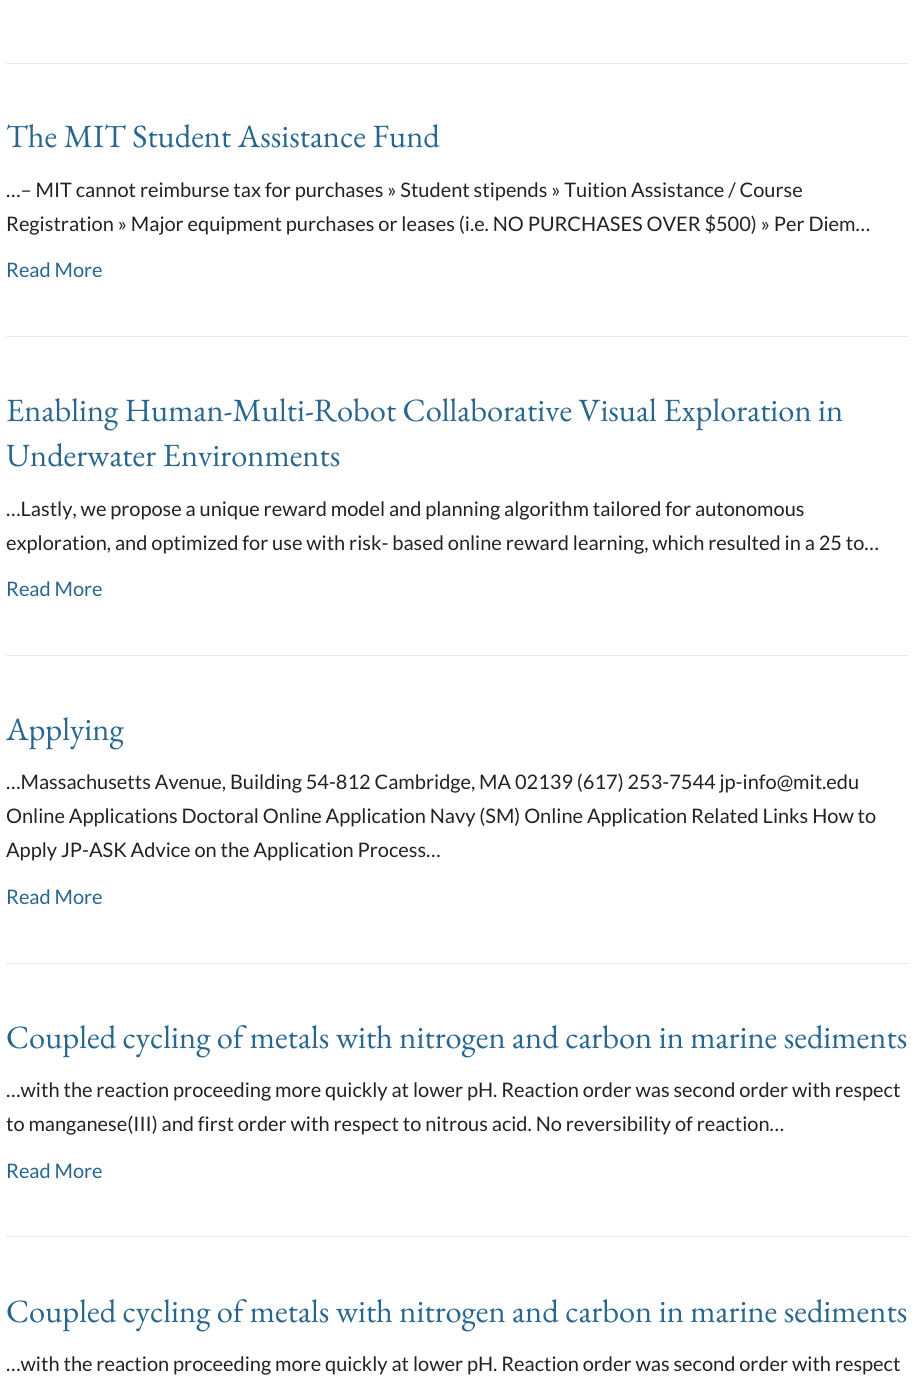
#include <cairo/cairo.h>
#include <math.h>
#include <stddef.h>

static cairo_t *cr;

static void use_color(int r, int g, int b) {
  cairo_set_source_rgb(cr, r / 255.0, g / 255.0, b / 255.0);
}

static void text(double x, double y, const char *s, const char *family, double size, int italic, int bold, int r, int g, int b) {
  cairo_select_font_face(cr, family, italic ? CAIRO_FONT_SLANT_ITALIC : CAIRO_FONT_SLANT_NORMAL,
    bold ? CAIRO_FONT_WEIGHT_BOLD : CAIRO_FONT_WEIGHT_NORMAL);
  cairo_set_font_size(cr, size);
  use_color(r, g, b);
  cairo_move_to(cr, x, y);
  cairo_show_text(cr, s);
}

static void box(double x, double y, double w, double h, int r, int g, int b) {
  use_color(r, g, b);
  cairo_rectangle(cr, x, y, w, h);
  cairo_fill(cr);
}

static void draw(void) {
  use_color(255, 255, 255);
  cairo_paint(cr);
  box(6, 63, 902, 1, 230, 230, 230);
  box(6, 336, 902, 1, 230, 230, 230);
  box(6, 655, 902, 1, 230, 230, 230);
  box(6, 963, 902, 1, 230, 230, 230);
  box(6, 1236, 902, 1, 230, 230, 230);
  text(6, 147, "The MIT Student Assistance Fund", "EB Garamond", 32.5, 0, 0, 39, 102, 143);
  text(6, 197, "…– MIT cannot reimburse tax for purchases » Student stipends » Tuition Assistance / Course", "Lato", 20, 0, 0, 34, 34, 34);
  text(6, 231, "Registration » Major equipment purchases or leases (i.e. NO PURCHASES OVER $500) » Per Diem…", "Lato", 20, 0, 0, 34, 34, 34);
  text(6, 277, "Read More", "Lato", 20, 0, 0, 39, 102, 143);
  text(6, 421, "Enabling Human-Multi-Robot Collaborative Visual Exploration in", "EB Garamond", 32.5, 0, 0, 39, 102, 143);
  text(6, 466, "Underwater Environments", "EB Garamond", 32.5, 0, 0, 39, 102, 143);
  text(6, 516, "…Lastly, we propose a unique reward model and planning algorithm tailored for autonomous", "Lato", 20, 0, 0, 34, 34, 34);
  text(6, 550, "exploration, and optimized for use with risk- based online reward learning, which resulted in a 25 to…", "Lato", 20, 0, 0, 34, 34, 34);
  text(6, 596, "Read More", "Lato", 20, 0, 0, 39, 102, 143);
  text(6, 740, "Applying", "EB Garamond", 32.5, 0, 0, 39, 102, 143);
  text(6, 789, "…Massachusetts Avenue, Building 54-812 Cambridge, MA 02139 (617) 253-7544 jp-info@mit.edu", "Lato", 20, 0, 0, 34, 34, 34);
  text(6, 823, "Online Applications Doctoral Online Application Navy (SM) Online Application Related Links How to", "Lato", 20, 0, 0, 34, 34, 34);
  text(6, 857, "Apply JP-ASK Advice on the Application Process…", "Lato", 20, 0, 0, 34, 34, 34);
  text(6, 904, "Read More", "Lato", 20, 0, 0, 39, 102, 143);
  text(6, 1048, "Coupled cycling of metals with nitrogen and carbon in marine sediments", "EB Garamond", 32.5, 0, 0, 39, 102, 143);
  text(6, 1097, "…with the reaction proceeding more quickly at lower pH. Reaction order was second order with respect", "Lato", 20, 0, 0, 34, 34, 34);
  text(6, 1131, "to manganese(III) and first order with respect to nitrous acid. No reversibility of reaction…", "Lato", 20, 0, 0, 34, 34, 34);
  text(6, 1178, "Read More", "Lato", 20, 0, 0, 39, 102, 143);
  text(6, 1322, "Coupled cycling of metals with nitrogen and carbon in marine sediments", "EB Garamond", 32.5, 0, 0, 39, 102, 143);
  text(6, 1371, "…with the reaction proceeding more quickly at lower pH. Reaction order was second order with respect", "Lato", 20, 0, 0, 34, 34, 34);
}

int main(void) {
  cairo_surface_t *surface = cairo_image_surface_create(CAIRO_FORMAT_RGB24, 920, 1388);
  cr = cairo_create(surface);
  cairo_font_options_t *options = cairo_font_options_create();
  cairo_font_options_set_hint_metrics(options, CAIRO_HINT_METRICS_OFF);
  cairo_font_options_set_hint_style(options, CAIRO_HINT_STYLE_NONE);
  cairo_set_font_options(cr, options);
  cairo_set_miter_limit(cr, 4);
  draw();
  cairo_surface_write_to_png(surface, "out.png");
  cairo_font_options_destroy(options);
  cairo_destroy(cr);
  cairo_surface_destroy(surface);
  return 0;
}
